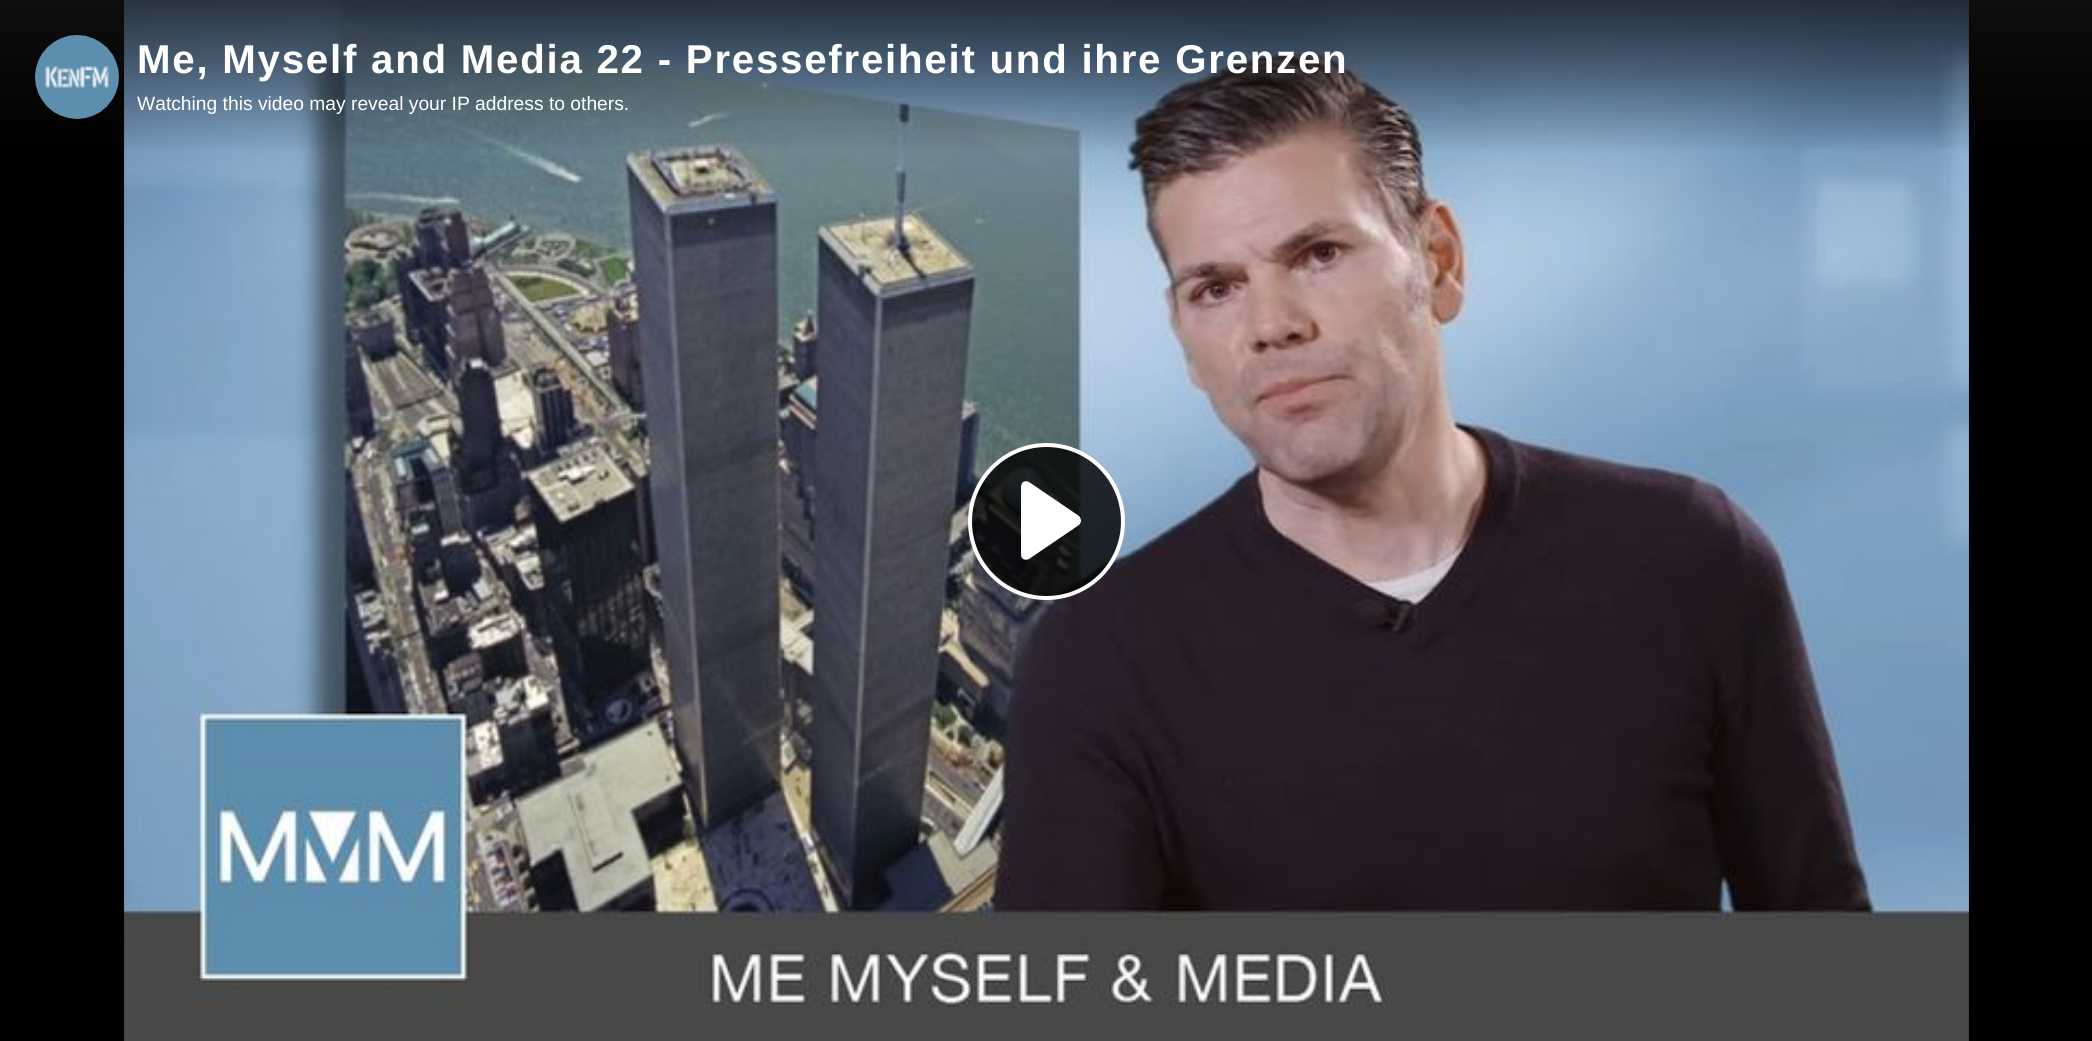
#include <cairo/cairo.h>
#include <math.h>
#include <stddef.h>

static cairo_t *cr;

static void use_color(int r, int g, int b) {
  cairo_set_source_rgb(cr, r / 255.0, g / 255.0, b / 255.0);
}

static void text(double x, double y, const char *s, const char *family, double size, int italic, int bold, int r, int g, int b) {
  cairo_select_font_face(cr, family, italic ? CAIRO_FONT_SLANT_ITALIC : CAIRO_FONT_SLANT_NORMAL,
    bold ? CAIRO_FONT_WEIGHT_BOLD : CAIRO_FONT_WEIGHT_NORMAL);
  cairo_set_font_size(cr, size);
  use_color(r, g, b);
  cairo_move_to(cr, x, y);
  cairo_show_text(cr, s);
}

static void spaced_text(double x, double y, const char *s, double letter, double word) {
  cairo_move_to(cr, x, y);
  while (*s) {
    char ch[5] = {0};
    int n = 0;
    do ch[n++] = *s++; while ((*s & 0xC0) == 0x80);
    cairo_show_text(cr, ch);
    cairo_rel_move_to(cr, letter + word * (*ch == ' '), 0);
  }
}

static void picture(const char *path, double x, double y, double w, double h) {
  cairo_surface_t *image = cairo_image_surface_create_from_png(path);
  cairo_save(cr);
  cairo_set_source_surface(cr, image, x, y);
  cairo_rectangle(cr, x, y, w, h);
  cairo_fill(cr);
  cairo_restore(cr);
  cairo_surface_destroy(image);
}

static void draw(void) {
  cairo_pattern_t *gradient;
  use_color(0, 0, 0);
  cairo_paint(cr);
  picture("img_01.png", 124, 0, 1845, 1041);
  picture("img_02.png", 124, 0, 1845, 1041);
  gradient = cairo_pattern_create_linear(1047, 0, 1047, 154);
  cairo_pattern_add_color_stop_rgba(gradient, 0, 0.078, 0.078, 0.078, 0.7);
  cairo_pattern_add_color_stop_rgba(gradient, 1, 0.078, 0.078, 0.078, 0);
  cairo_set_source(cr, gradient);
  cairo_pattern_destroy(gradient);
  cairo_rectangle(cr, 0, 0, 2092, 149);
  cairo_fill(cr);
  picture("img_03.png", 35, 35, 84, 84);
  cairo_set_source_rgba(cr, 0, 0, 0, 0.8);
  cairo_arc(cr, 1046.5, 521.5, 76.5, 0, 2 * M_PI);
  cairo_fill_preserve(cr);
  use_color(255, 255, 255);
  cairo_set_line_width(cr, 4);
  cairo_stroke(cr);
  cairo_new_path(cr);
  cairo_move_to(cr, 1079, 516);
  cairo_line_to(cr, 1029, 482);
  cairo_curve_to(cr, 1027, 481, 1025, 481, 1023, 482);
  cairo_curve_to(cr, 1022, 483, 1021, 485, 1021, 487);
  cairo_line_to(cr, 1021, 555);
  cairo_curve_to(cr, 1021, 557, 1022, 558, 1023, 559);
  cairo_curve_to(cr, 1025, 560, 1027, 560, 1029, 559);
  cairo_line_to(cr, 1079, 525);
  cairo_curve_to(cr, 1080, 524, 1081, 522, 1081, 521);
  cairo_curve_to(cr, 1081, 519, 1080, 517, 1079, 516);
  cairo_fill(cr);
  cairo_select_font_face(cr, "Liberation Sans", CAIRO_FONT_SLANT_NORMAL, CAIRO_FONT_WEIGHT_BOLD);
  cairo_set_font_size(cr, 40.25);
  spaced_text(137, 73, "Me, Myself and Media 22 - Pressefreiheit und ihre Grenzen", 1.75, 0);
  text(137, 110, "Watching this video may reveal your IP address to others.", "Liberation Sans", 19.25, 0, 0, 255, 255, 255);
}

int main(void) {
  cairo_surface_t *surface = cairo_image_surface_create(CAIRO_FORMAT_RGB24, 2092, 1041);
  cr = cairo_create(surface);
  cairo_font_options_t *options = cairo_font_options_create();
  cairo_font_options_set_hint_metrics(options, CAIRO_HINT_METRICS_OFF);
  cairo_font_options_set_hint_style(options, CAIRO_HINT_STYLE_NONE);
  cairo_set_font_options(cr, options);
  cairo_set_miter_limit(cr, 4);
  draw();
  cairo_surface_write_to_png(surface, "out.png");
  cairo_font_options_destroy(options);
  cairo_destroy(cr);
  cairo_surface_destroy(surface);
  return 0;
}
